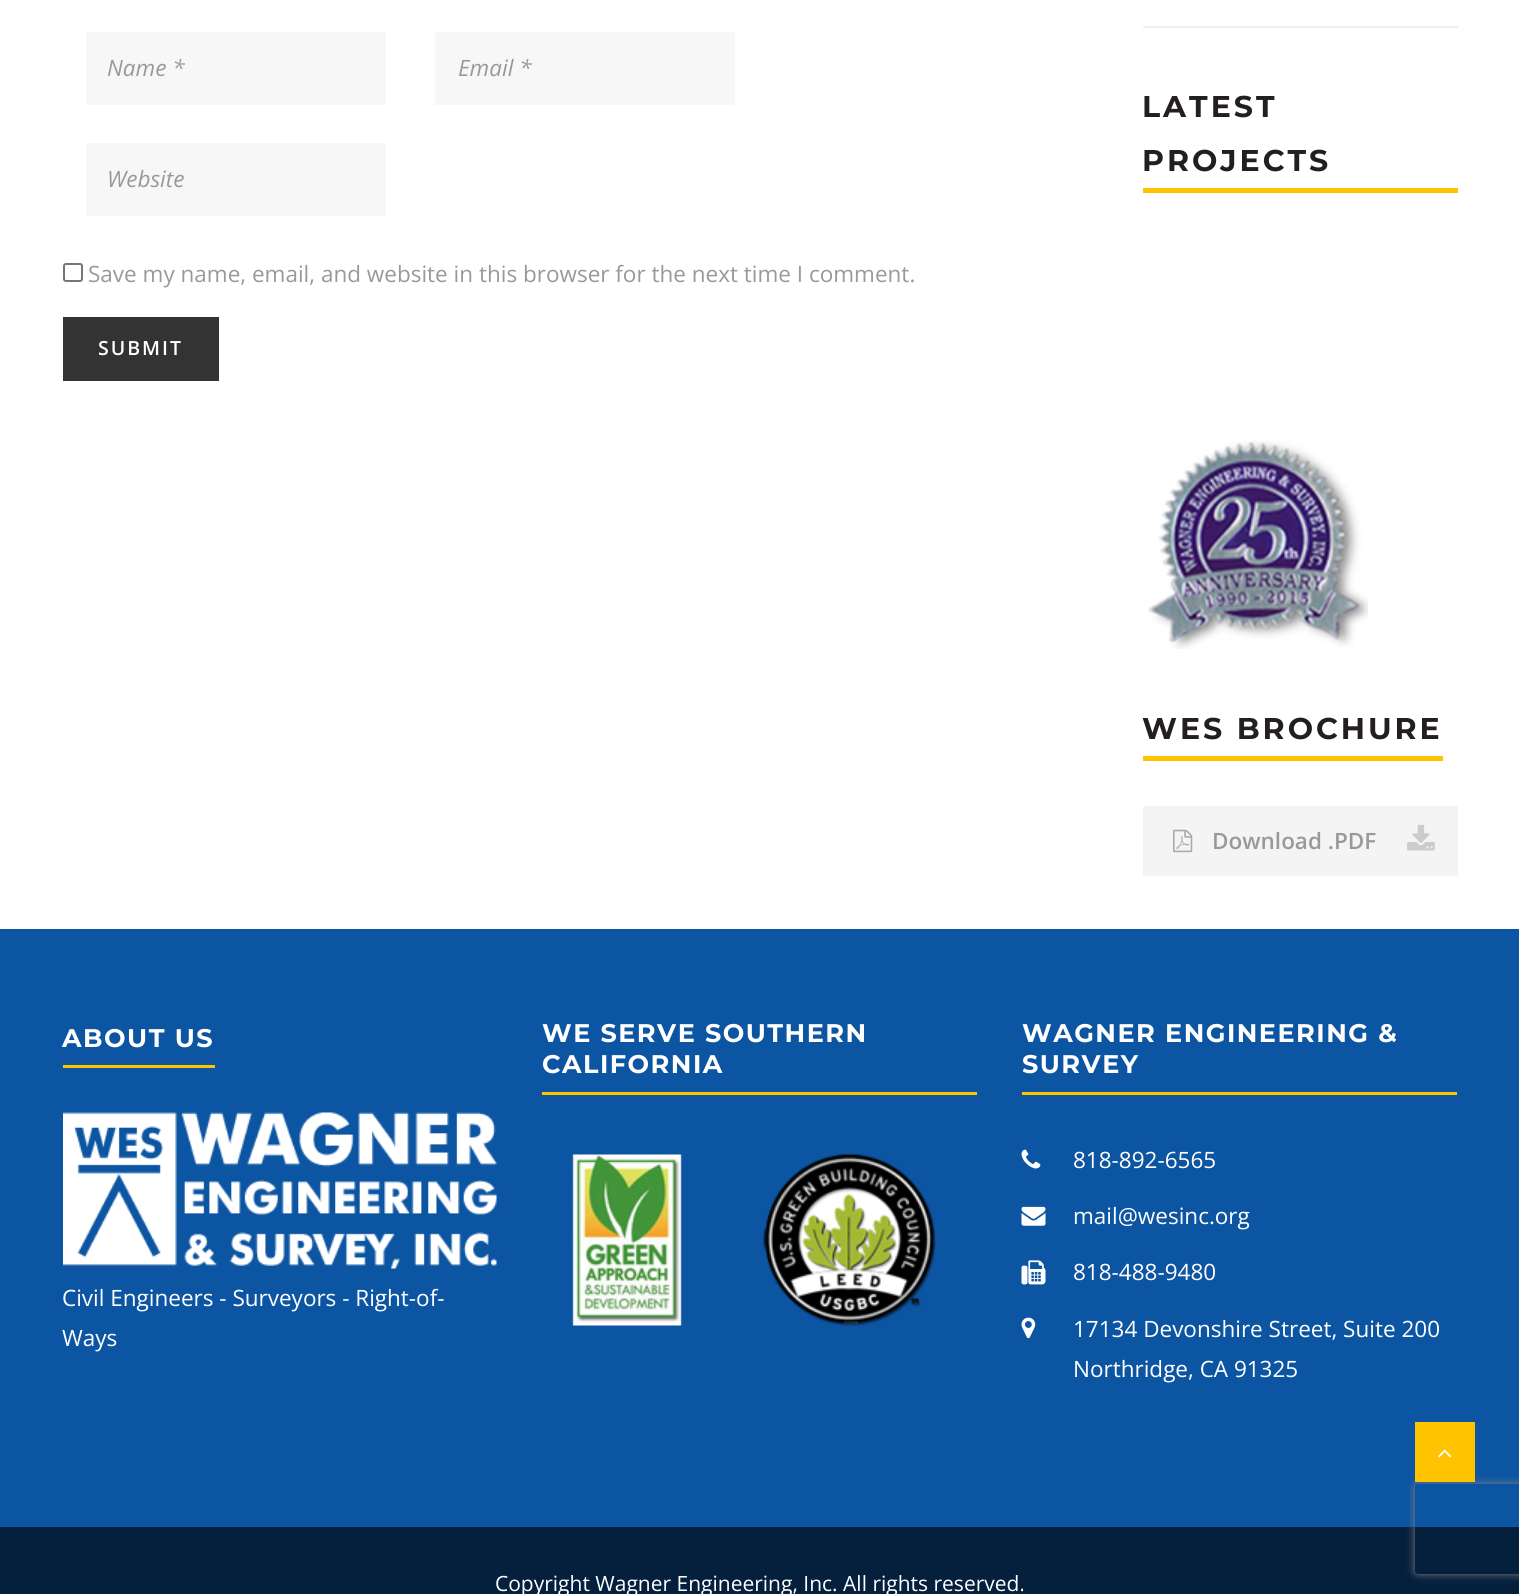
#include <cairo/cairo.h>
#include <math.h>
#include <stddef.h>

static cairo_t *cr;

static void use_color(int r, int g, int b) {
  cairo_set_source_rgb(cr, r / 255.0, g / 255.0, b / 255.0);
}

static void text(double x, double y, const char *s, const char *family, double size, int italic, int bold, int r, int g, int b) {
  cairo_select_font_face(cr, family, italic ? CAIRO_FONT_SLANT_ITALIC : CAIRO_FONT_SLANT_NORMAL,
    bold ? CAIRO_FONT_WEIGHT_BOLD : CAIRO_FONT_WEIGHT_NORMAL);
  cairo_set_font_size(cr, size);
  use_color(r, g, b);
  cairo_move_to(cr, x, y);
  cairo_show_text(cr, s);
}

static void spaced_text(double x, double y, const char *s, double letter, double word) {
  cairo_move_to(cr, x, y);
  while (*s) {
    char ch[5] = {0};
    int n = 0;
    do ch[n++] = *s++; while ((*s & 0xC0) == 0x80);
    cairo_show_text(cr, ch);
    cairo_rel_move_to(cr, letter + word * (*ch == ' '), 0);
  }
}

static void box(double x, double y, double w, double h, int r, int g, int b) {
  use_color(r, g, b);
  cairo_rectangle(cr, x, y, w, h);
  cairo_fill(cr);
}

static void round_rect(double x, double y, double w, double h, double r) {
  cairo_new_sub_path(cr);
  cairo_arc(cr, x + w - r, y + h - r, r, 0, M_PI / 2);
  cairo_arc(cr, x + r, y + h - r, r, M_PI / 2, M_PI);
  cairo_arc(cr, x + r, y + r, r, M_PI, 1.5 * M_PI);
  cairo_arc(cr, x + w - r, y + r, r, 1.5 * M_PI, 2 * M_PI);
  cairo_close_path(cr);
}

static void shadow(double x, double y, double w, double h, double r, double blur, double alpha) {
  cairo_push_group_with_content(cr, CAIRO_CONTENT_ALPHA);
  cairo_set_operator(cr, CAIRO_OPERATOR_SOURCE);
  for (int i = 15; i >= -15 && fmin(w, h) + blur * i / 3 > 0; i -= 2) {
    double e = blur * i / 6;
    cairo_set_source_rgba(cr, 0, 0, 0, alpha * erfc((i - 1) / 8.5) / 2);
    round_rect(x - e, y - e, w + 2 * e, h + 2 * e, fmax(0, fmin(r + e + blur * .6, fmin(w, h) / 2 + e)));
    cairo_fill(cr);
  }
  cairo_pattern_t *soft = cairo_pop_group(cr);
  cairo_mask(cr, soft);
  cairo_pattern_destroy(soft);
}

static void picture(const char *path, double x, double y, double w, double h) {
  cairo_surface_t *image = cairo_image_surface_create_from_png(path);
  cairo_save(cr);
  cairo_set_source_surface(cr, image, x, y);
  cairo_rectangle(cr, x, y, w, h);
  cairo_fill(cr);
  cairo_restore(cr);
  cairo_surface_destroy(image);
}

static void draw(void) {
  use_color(255, 255, 255);
  cairo_paint(cr);
  box(86, 32, 300, 73, 247, 247, 247);
  box(435, 32, 300, 73, 247, 247, 247);
  box(86, 143, 300, 73, 247, 247, 247);
  round_rect(64, 264, 18, 17, 2);
  use_color(118, 118, 118);
  cairo_stroke(cr);
  box(63, 317, 156, 64, 51, 51, 51);
  box(1143, 26, 315, 2, 238, 238, 238);
  box(1143, 188, 315, 5, 255, 196, 0);
  picture("img_01.png", 1148, 440, 220, 209);
  box(1143, 756, 300, 5, 255, 196, 0);
  box(1143, 806, 315, 70, 244, 244, 244);
  picture("img_02.png", 1173, 829, 20, 24);
  picture("img_03.png", 1407, 824, 28, 27);
  box(0, 929, 1519, 598, 12, 85, 162);
  box(63, 1065, 152, 3, 255, 196, 0);
  picture("img_04.png", 63, 1112, 434, 157);
  box(542, 1092, 435, 3, 255, 196, 0);
  picture("img_05.png", 572, 1154, 110, 172);
  picture("img_06.png", 763, 1154, 173, 173);
  box(1022, 1092, 435, 3, 255, 196, 0);
  picture("img_07.png", 1021, 1149, 20, 20);
  picture("img_08.png", 1021, 1206, 25, 20);
  picture("img_09.png", 1021, 1260, 25, 25);
  picture("img_10.png", 1021, 1317, 15, 22);
  box(0, 1527, 1519, 67, 4, 32, 61);
  cairo_save(cr);
  cairo_set_fill_rule(cr, CAIRO_FILL_RULE_EVEN_ODD);
  cairo_new_path(cr);
  cairo_move_to(cr, 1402, 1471);
  cairo_line_to(cr, 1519, 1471);
  cairo_line_to(cr, 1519, 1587);
  cairo_line_to(cr, 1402, 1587);
  cairo_close_path(cr);
  cairo_move_to(cr, 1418, 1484);
  cairo_line_to(cr, 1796, 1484);
  cairo_curve_to(cr, 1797.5, 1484, 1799, 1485.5, 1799, 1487);
  cairo_line_to(cr, 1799, 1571);
  cairo_curve_to(cr, 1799, 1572.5, 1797.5, 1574, 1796, 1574);
  cairo_line_to(cr, 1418, 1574);
  cairo_curve_to(cr, 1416.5, 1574, 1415, 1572.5, 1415, 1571);
  cairo_line_to(cr, 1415, 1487);
  cairo_curve_to(cr, 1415, 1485.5, 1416.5, 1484, 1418, 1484);
  cairo_close_path(cr);
  cairo_clip(cr);
  use_color(128, 128, 128);
  shadow(1415, 1484, 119, 90, 3, 4, 1);
  cairo_restore(cr);
  box(1415, 1422, 60, 60, 255, 196, 0);
  picture("img_11.png", 1438, 1449, 14, 9);
  text(107, 76, "Name *", "Open Sans", 22.5, 1, 0, 153, 153, 153);
  text(458, 76, "Email *", "Open Sans", 22.5, 1, 0, 153, 153, 153);
  text(107, 187, "Website", "Open Sans", 22.5, 1, 0, 153, 153, 153);
  text(88, 282, "Save my name, email, and website in this browser for the next time I comment.", "Open Sans", 22.5, 0, 0, 153, 153, 153);
  cairo_select_font_face(cr, "Open Sans SemiBold", CAIRO_FONT_SLANT_NORMAL, CAIRO_FONT_WEIGHT_NORMAL);
  cairo_set_font_size(cr, 19.5);
  use_color(255, 255, 255);
  spaced_text(98, 355, "SUBMIT", 2, 0);
  cairo_select_font_face(cr, "Montserrat", CAIRO_FONT_SLANT_NORMAL, CAIRO_FONT_WEIGHT_BOLD);
  cairo_set_font_size(cr, 30);
  use_color(35, 31, 32);
  spaced_text(1142, 117, "LATEST", 3, 0);
  spaced_text(1142, 171, "PROJECTS", 3, 0);
  spaced_text(1142, 739, "WES BROCHURE", 3, 0);
  text(1212, 849, "Download .PDF", "Open Sans SemiBold", 22.5, 0, 0, 153, 153, 153);
  cairo_select_font_face(cr, "Montserrat", CAIRO_FONT_SLANT_NORMAL, CAIRO_FONT_WEIGHT_BOLD);
  cairo_set_font_size(cr, 25.5);
  use_color(255, 255, 255);
  spaced_text(62, 1047, "ABOUT US", 1.5, 0);
  text(62, 1306, "Civil Engineers - Surveyors - Right-of-", "Open Sans", 22.5, 0, 0, 255, 255, 255);
  text(62, 1346, "Ways", "Open Sans", 22.5, 0, 0, 255, 255, 255);
  cairo_select_font_face(cr, "Montserrat", CAIRO_FONT_SLANT_NORMAL, CAIRO_FONT_WEIGHT_BOLD);
  cairo_set_font_size(cr, 25.5);
  spaced_text(542, 1042, "WE SERVE SOUTHERN", 1.5, 0);
  spaced_text(542, 1073, "CALIFORNIA", 1.5, 0);
  spaced_text(1022, 1042, "WAGNER ENGINEERING &", 1.5, 0);
  spaced_text(1022, 1073, "SURVEY", 1.5, 0);
  text(1073, 1168, "818-892-6565", "Open Sans", 22.5, 0, 0, 255, 255, 255);
  text(1073, 1224, "mail@wesinc.org", "Open Sans", 22.5, 0, 0, 255, 255, 255);
  text(1073, 1280, "818-488-9480", "Open Sans", 22.5, 0, 0, 255, 255, 255);
  text(1073, 1337, "17134 Devonshire Street, Suite 200", "Open Sans", 22.5, 0, 0, 255, 255, 255);
  text(1073, 1377, "Northridge, CA 91325", "Open Sans", 22.5, 0, 0, 255, 255, 255);
  text(495, 1591, "Copyright Wagner Engineering, Inc. All rights reserved.", "Open Sans", 21, 0, 0, 255, 255, 255);
}

int main(void) {
  cairo_surface_t *surface = cairo_image_surface_create(CAIRO_FORMAT_RGB24, 1519, 1594);
  cr = cairo_create(surface);
  cairo_font_options_t *options = cairo_font_options_create();
  cairo_font_options_set_hint_metrics(options, CAIRO_HINT_METRICS_OFF);
  cairo_font_options_set_hint_style(options, CAIRO_HINT_STYLE_NONE);
  cairo_set_font_options(cr, options);
  cairo_set_miter_limit(cr, 4);
  draw();
  cairo_surface_write_to_png(surface, "out.png");
  cairo_font_options_destroy(options);
  cairo_destroy(cr);
  cairo_surface_destroy(surface);
  return 0;
}
